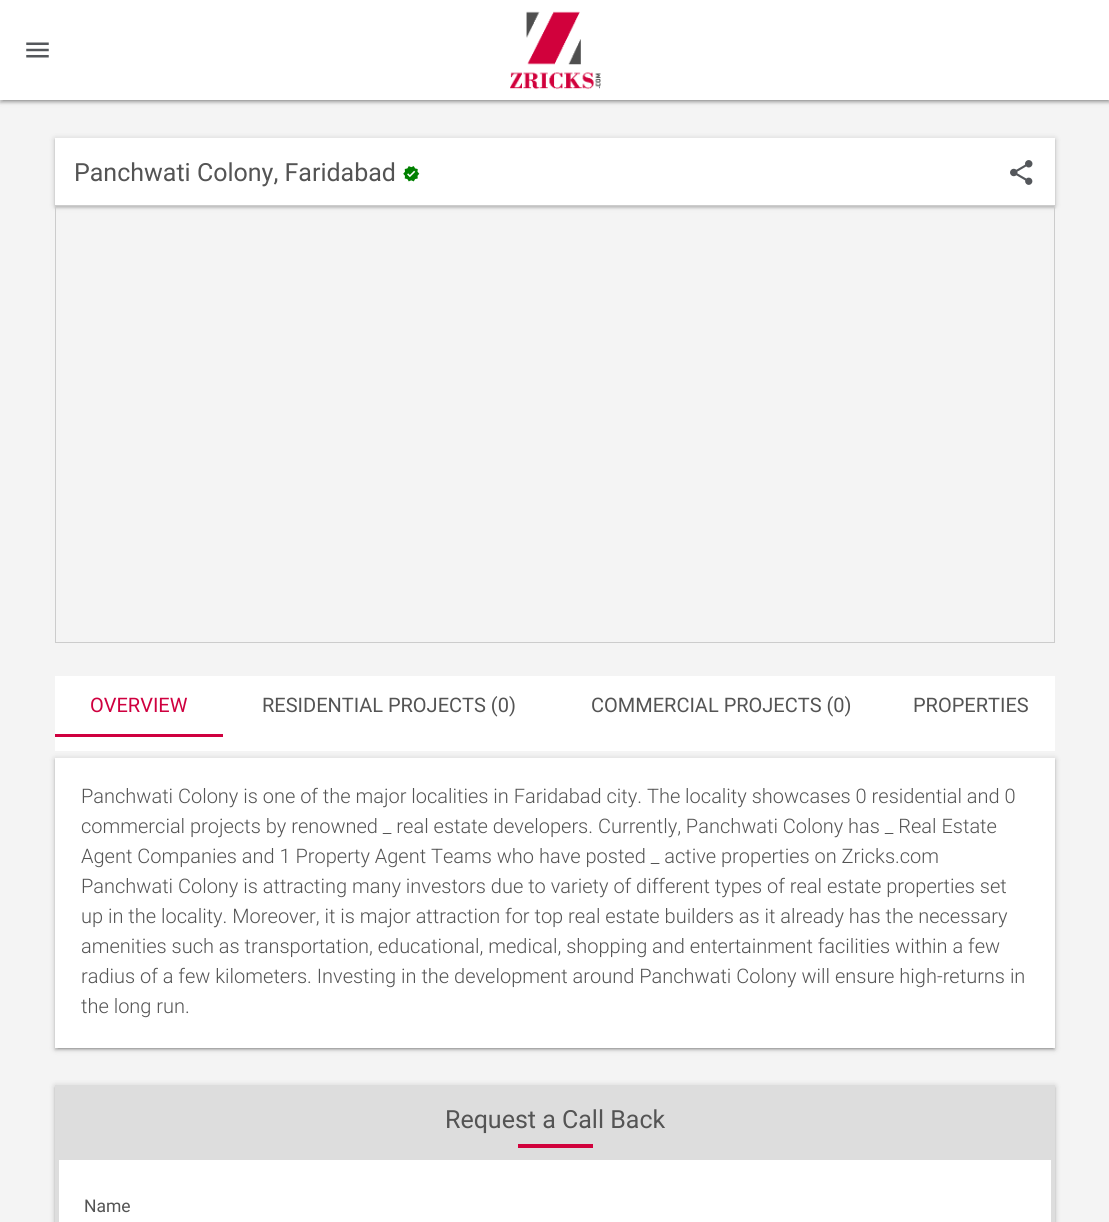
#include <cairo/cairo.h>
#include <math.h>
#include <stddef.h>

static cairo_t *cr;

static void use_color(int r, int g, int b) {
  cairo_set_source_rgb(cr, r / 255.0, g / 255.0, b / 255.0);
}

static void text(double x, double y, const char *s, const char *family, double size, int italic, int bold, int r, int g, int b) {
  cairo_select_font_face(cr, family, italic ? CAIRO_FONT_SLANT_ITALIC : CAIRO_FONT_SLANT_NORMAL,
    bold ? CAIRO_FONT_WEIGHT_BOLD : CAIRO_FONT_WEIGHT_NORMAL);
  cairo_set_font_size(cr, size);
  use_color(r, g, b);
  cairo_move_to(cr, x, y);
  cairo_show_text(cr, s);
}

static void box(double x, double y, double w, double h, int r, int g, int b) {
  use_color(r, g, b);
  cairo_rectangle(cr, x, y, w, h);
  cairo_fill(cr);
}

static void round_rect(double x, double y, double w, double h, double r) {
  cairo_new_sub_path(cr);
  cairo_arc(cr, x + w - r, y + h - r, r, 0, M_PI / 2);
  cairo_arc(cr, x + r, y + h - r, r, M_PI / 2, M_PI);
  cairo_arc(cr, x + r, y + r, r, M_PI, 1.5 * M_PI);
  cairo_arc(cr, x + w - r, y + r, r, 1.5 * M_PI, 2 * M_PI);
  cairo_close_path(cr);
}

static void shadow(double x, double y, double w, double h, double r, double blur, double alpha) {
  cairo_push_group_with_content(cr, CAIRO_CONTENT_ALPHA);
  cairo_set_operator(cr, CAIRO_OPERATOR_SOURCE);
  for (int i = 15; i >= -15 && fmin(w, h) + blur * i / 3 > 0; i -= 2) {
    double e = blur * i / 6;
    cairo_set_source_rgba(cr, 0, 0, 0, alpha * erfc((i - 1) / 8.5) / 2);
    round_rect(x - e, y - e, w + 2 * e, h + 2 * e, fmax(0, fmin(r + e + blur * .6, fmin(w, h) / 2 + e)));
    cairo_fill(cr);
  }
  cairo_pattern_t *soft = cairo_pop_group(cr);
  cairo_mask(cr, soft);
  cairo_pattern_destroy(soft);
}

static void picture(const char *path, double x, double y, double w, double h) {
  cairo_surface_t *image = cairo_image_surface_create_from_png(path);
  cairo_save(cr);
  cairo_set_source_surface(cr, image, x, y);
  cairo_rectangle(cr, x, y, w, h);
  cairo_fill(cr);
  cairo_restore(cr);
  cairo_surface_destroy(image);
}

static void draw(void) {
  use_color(244, 244, 244);
  cairo_paint(cr);
  use_color(0, 0, 0);
  shadow(0, 1, 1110, 100, 0, 3, 0.2);
  shadow(3, 6, 1105, 95, 0, 0.5, 0.12);
  shadow(0, 3, 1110, 100, 0, 1, 0.14);
  box(0, 0, 1109, 100, 255, 255, 255);
  picture("img_01.png", 26, 42, 23, 16);
  picture("img_02.png", 510, 11, 91, 79);
  use_color(0, 0, 0);
  shadow(55, 139, 1000, 67, 0, 3, 0.2);
  shadow(55, 140, 1000, 68, 0, 1, 0.14);
  box(55, 138, 1000, 67, 255, 255, 255);
  picture("img_03.png", 403, 166, 17, 16);
  picture("img_04.png", 1010, 160, 23, 25);
  cairo_rectangle(cr, 55.5, 205.5, 999, 437);
  use_color(204, 204, 204);
  cairo_set_line_width(cr, 1);
  cairo_stroke(cr);
  use_color(0, 0, 0);
  shadow(55, 759, 1000, 290, 0, 3, 0.2);
  box(55, 676, 1000, 75, 255, 255, 255);
  box(55, 734, 168, 3, 207, 0, 63);
  use_color(0, 0, 0);
  shadow(58, 764, 995, 285, 0, 0.5, 0.12);
  shadow(55, 760, 1000, 290, 0, 1, 0.14);
  box(55, 758, 1000, 290, 255, 255, 255);
  use_color(0, 0, 0);
  shadow(55, 1086, 1000, 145, 0, 3, 0.2);
  shadow(55, 1088, 1000, 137, 0, 1, 0.14);
  box(59, 1160, 992, 62, 255, 255, 255);
  cairo_rectangle(cr, 57, 1087, 996, 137);
  use_color(221, 221, 221);
  cairo_set_line_width(cr, 4);
  cairo_stroke(cr);
  box(59, 1089, 992, 71, 221, 221, 221);
  box(518, 1144, 75, 4, 209, 1, 60);
  text(74, 181, "Panchwati Colony, Faridabad", "Roboto", 25, 0, 0, 84, 84, 84);
  text(90, 712, "OVERVIEW", "Roboto", 20, 0, 0, 207, 0, 63);
  text(262, 712, "RESIDENTIAL PROJECTS (0)", "Roboto", 20, 0, 0, 84, 84, 84);
  text(591, 712, "COMMERCIAL PROJECTS (0)", "Roboto", 20, 0, 0, 84, 84, 84);
  text(913, 712, "PROPERTIES", "Roboto", 20, 0, 0, 84, 84, 84);
  text(81, 803, "Panchwati Colony is one of the major localities in Faridabad city. The locality showcases 0 residential and 0", "Roboto Light", 20, 0, 0, 84, 84, 84);
  text(81, 833, "commercial projects by renowned _ real estate developers. Currently, Panchwati Colony has _ Real Estate", "Roboto Light", 20, 0, 0, 84, 84, 84);
  text(81, 863, "Agent Companies and 1 Property Agent Teams who have posted _ active properties on Zricks.com", "Roboto Light", 20, 0, 0, 84, 84, 84);
  text(81, 893, "Panchwati Colony is attracting many investors due to variety of different types of real estate properties set", "Roboto Light", 20, 0, 0, 84, 84, 84);
  text(81, 923, "up in the locality. Moreover, it is major attraction for top real estate builders as it already has the necessary", "Roboto Light", 20, 0, 0, 84, 84, 84);
  text(81, 953, "amenities such as transportation, educational, medical, shopping and entertainment facilities within a few", "Roboto Light", 20, 0, 0, 84, 84, 84);
  text(81, 983, "radius of a few kilometers. Investing in the development around Panchwati Colony will ensure high-returns in", "Roboto Light", 20, 0, 0, 84, 84, 84);
  text(81, 1013, "the long run.", "Roboto Light", 20, 0, 0, 84, 84, 84);
  text(445, 1128, "Request a Call Back", "Roboto", 25, 0, 0, 84, 84, 84);
  text(84, 1212, "Name", "Roboto", 17.5, 0, 0, 84, 84, 84);
}

int main(void) {
  cairo_surface_t *surface = cairo_image_surface_create(CAIRO_FORMAT_RGB24, 1109, 1222);
  cr = cairo_create(surface);
  cairo_font_options_t *options = cairo_font_options_create();
  cairo_font_options_set_hint_metrics(options, CAIRO_HINT_METRICS_OFF);
  cairo_font_options_set_hint_style(options, CAIRO_HINT_STYLE_NONE);
  cairo_set_font_options(cr, options);
  cairo_set_miter_limit(cr, 4);
  draw();
  cairo_surface_write_to_png(surface, "out.png");
  cairo_font_options_destroy(options);
  cairo_destroy(cr);
  cairo_surface_destroy(surface);
  return 0;
}
